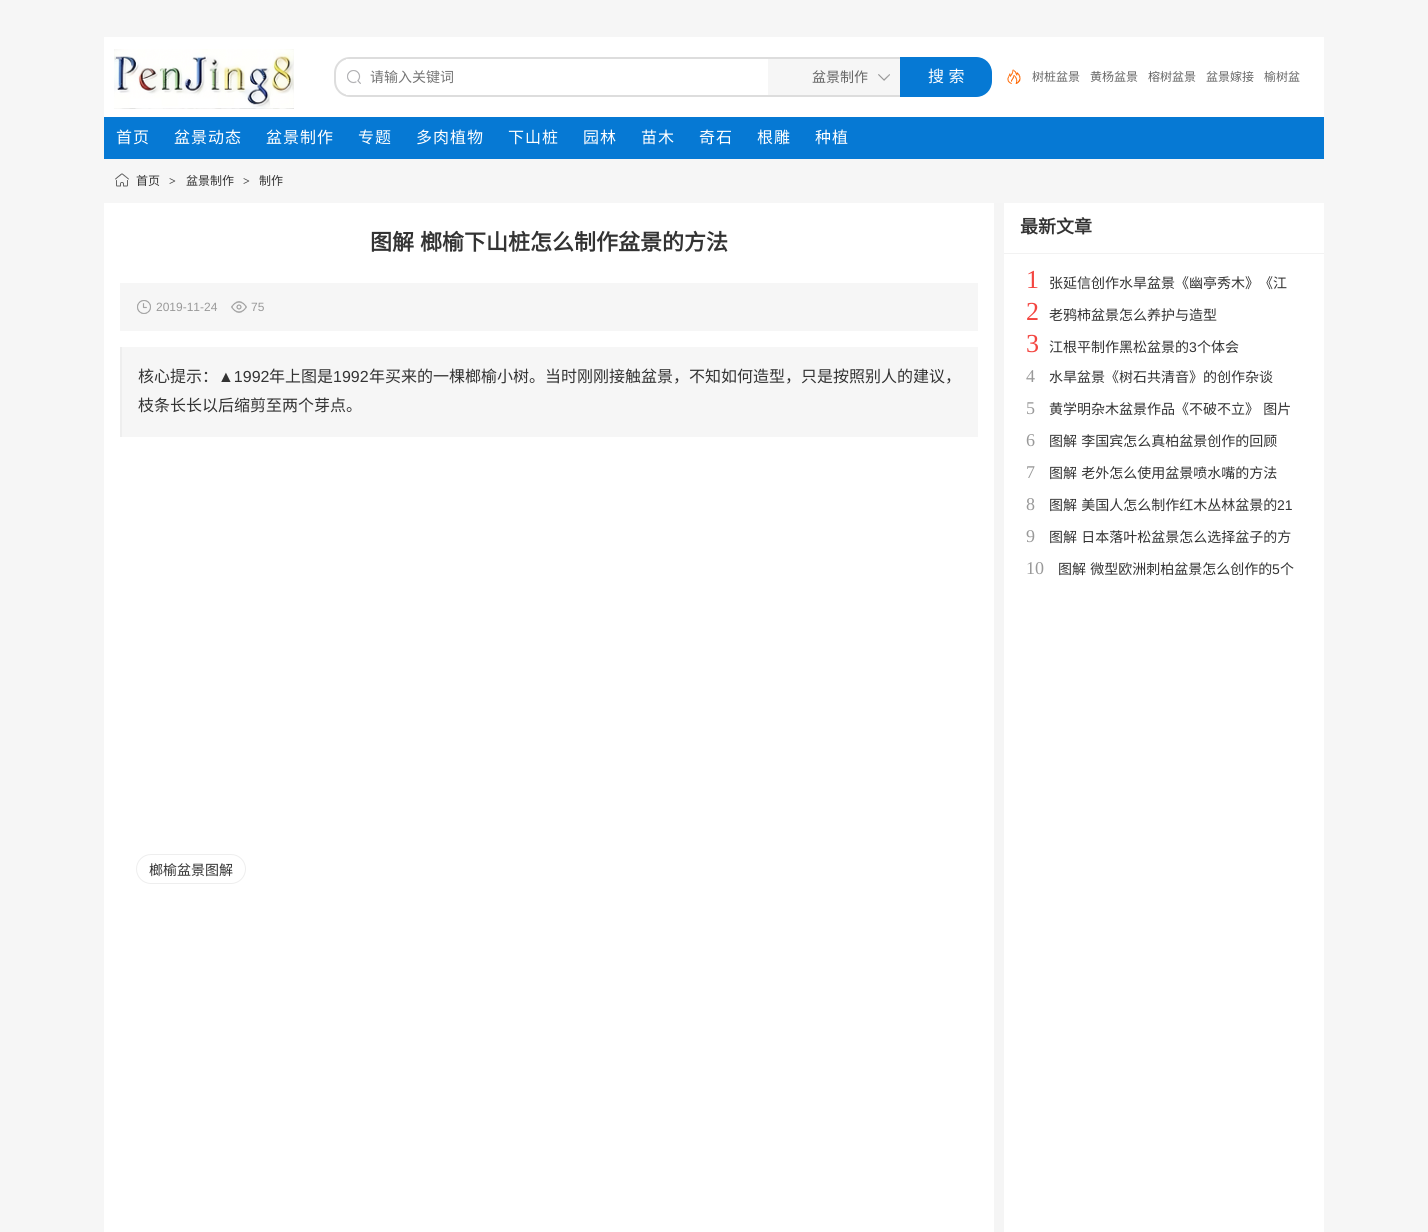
#include <cairo/cairo.h>
#include <math.h>
#include <stddef.h>

static cairo_t *cr;

static void use_color(int r, int g, int b) {
  cairo_set_source_rgb(cr, r / 255.0, g / 255.0, b / 255.0);
}

static void text(double x, double y, const char *s, const char *family, double size, int italic, int bold, int r, int g, int b) {
  cairo_select_font_face(cr, family, italic ? CAIRO_FONT_SLANT_ITALIC : CAIRO_FONT_SLANT_NORMAL,
    bold ? CAIRO_FONT_WEIGHT_BOLD : CAIRO_FONT_WEIGHT_NORMAL);
  cairo_set_font_size(cr, size);
  use_color(r, g, b);
  cairo_move_to(cr, x, y);
  cairo_show_text(cr, s);
}

static void spaced_text(double x, double y, const char *s, double letter, double word) {
  cairo_move_to(cr, x, y);
  while (*s) {
    char ch[5] = {0};
    int n = 0;
    do ch[n++] = *s++; while ((*s & 0xC0) == 0x80);
    cairo_show_text(cr, ch);
    cairo_rel_move_to(cr, letter + word * (*ch == ' '), 0);
  }
}

static void box(double x, double y, double w, double h, int r, int g, int b) {
  use_color(r, g, b);
  cairo_rectangle(cr, x, y, w, h);
  cairo_fill(cr);
}

static void round_rect(double x, double y, double w, double h, double r) {
  cairo_new_sub_path(cr);
  cairo_arc(cr, x + w - r, y + h - r, r, 0, M_PI / 2);
  cairo_arc(cr, x + r, y + h - r, r, M_PI / 2, M_PI);
  cairo_arc(cr, x + r, y + r, r, M_PI, 1.5 * M_PI);
  cairo_arc(cr, x + w - r, y + r, r, 1.5 * M_PI, 2 * M_PI);
  cairo_close_path(cr);
}

static void picture(const char *path, double x, double y, double w, double h) {
  cairo_surface_t *image = cairo_image_surface_create_from_png(path);
  cairo_save(cr);
  cairo_set_source_surface(cr, image, x, y);
  cairo_rectangle(cr, x, y, w, h);
  cairo_fill(cr);
  cairo_restore(cr);
  cairo_surface_destroy(image);
}

static void draw(void) {
  use_color(246, 246, 246);
  cairo_paint(cr);
  box(104, 37, 1220, 80, 255, 255, 255);
  picture("img_01.png", 114, 49, 180, 60);
  use_color(221, 221, 221);
  cairo_set_fill_rule(cr, CAIRO_FILL_RULE_EVEN_ODD);
  cairo_new_path(cr);
  cairo_move_to(cr, 350, 57);
  cairo_line_to(cr, 768, 57);
  cairo_line_to(cr, 768, 97);
  cairo_line_to(cr, 350, 97);
  cairo_curve_to(cr, 341, 97, 334, 90, 334, 81);
  cairo_line_to(cr, 334, 73);
  cairo_curve_to(cr, 334, 64, 341, 57, 350, 57);
  cairo_close_path(cr);
  cairo_move_to(cr, 350, 59);
  cairo_line_to(cr, 768, 59);
  cairo_line_to(cr, 768, 95);
  cairo_line_to(cr, 350, 95);
  cairo_curve_to(cr, 342, 95, 336, 89, 336, 81);
  cairo_line_to(cr, 336, 73);
  cairo_curve_to(cr, 336, 65, 342, 59, 350, 59);
  cairo_close_path(cr);
  cairo_fill(cr);
  box(346, 59, 3, 36, 255, 255, 255);
  picture("img_02.png", 347, 70, 14, 14);
  box(768, 59, 132, 36, 246, 246, 246);
  box(768, 57, 132, 2, 221, 221, 221);
  box(768, 95, 132, 2, 221, 221, 221);
  picture("img_03.png", 878, 74, 12, 7);
  use_color(6, 121, 212);
  cairo_new_path(cr);
  cairo_move_to(cr, 901, 58);
  cairo_line_to(cr, 976, 58);
  cairo_curve_to(cr, 984.5, 58, 991, 64.5, 991, 73);
  cairo_line_to(cr, 991, 81);
  cairo_curve_to(cr, 991, 89.5, 984.5, 96, 976, 96);
  cairo_line_to(cr, 901, 96);
  cairo_close_path(cr);
  cairo_fill_preserve(cr);
  cairo_stroke(cr);
  picture("img_04.png", 1007, 69, 14, 15);
  box(104, 117, 1220, 42, 6, 121, 212);
  picture("img_05.png", 115, 173, 14, 14);
  box(104, 203, 1220, 1029, 255, 255, 255);
  box(994, 203, 10, 1029, 245, 245, 245);
  box(120, 283, 858, 48, 246, 246, 246);
  picture("img_06.png", 137, 300, 14, 14);
  picture("img_07.png", 231, 301, 16, 12);
  box(122, 347, 856, 90, 246, 246, 246);
  box(120, 347, 2, 90, 238, 238, 238);
  round_rect(136.5, 854.5, 109, 29, 14.5);
  cairo_set_line_width(cr, 1);
  cairo_stroke(cr);
  box(1004, 253, 320, 1, 242, 242, 242);
  text(370, 82, "请输入关键词", "Noto Sans CJK SC", 14, 0, 0, 117, 117, 117);
  text(812, 82, "盆景制作", "Noto Sans CJK SC", 14, 0, 0, 102, 102, 102);
  cairo_set_font_size(cr, 16);
  use_color(255, 255, 255);
  spaced_text(928, 82, "搜 索", 0, 1);
  text(1032, 81, "树桩盆景", "Noto Sans CJK SC", 12, 0, 0, 102, 102, 102);
  text(1090, 81, "黄杨盆景", "Noto Sans CJK SC", 12, 0, 0, 102, 102, 102);
  text(1148, 81, "榕树盆景", "Noto Sans CJK SC", 12, 0, 0, 102, 102, 102);
  text(1206, 81, "盆景嫁接", "Noto Sans CJK SC", 12, 0, 0, 102, 102, 102);
  text(1264, 81, "榆树盆", "Noto Sans CJK SC", 12, 0, 0, 102, 102, 102);
  cairo_set_font_size(cr, 16);
  use_color(255, 255, 255);
  spaced_text(116, 143, "首页", 1, 0);
  spaced_text(174, 143, "盆景动态", 1, 0);
  spaced_text(266, 143, "盆景制作", 1, 0);
  spaced_text(358, 143, "专题", 1, 0);
  spaced_text(416, 143, "多肉植物", 1, 0);
  spaced_text(508, 143, "下山桩", 1, 0);
  spaced_text(583, 143, "园林", 1, 0);
  spaced_text(641, 143, "苗木", 1, 0);
  spaced_text(699, 143, "奇石", 1, 0);
  spaced_text(757, 143, "根雕", 1, 0);
  spaced_text(815, 143, "种植", 1, 0);
  text(136, 185, "首页", "Noto Sans CJK SC", 12, 0, 0, 51, 51, 51);
  text(169, 185, ">", "Liberation Serif", 12, 0, 1, 68, 68, 68);
  text(186, 185, "盆景制作", "Noto Sans CJK SC", 12, 0, 0, 51, 51, 51);
  text(243, 185, ">", "Liberation Serif", 12, 0, 1, 68, 68, 68);
  text(259, 185, "制作", "Noto Sans CJK SC", 12, 0, 0, 51, 51, 51);
  cairo_select_font_face(cr, "Noto Sans CJK SC", CAIRO_FONT_SLANT_NORMAL, CAIRO_FONT_WEIGHT_BOLD);
  cairo_set_font_size(cr, 22);
  spaced_text(370, 250, "图解 榔榆下山桩怎么制作盆景的方法", 0, 1);
  text(156, 311, "2019-11-24", "Liberation Sans", 12, 0, 0, 153, 153, 153);
  text(251, 311, "75", "Liberation Sans", 12, 0, 0, 153, 153, 153);
  text(138, 382, "核心提示：", "Noto Sans CJK SC", 16, 0, 0, 51, 51, 51);
  text(218, 382, "▲1992", "Liberation Sans", 16, 0, 0, 51, 51, 51);
  text(269, 382, "年上图是", "Noto Sans CJK SC", 16, 0, 0, 51, 51, 51);
  text(333, 382, "1992", "Liberation Sans", 16, 0, 0, 51, 51, 51);
  text(369, 382, "年买来的一棵榔榆小树。当时刚刚接触盆景，不知如何造型，只是按照别人的建议，", "Noto Sans CJK SC", 16, 0, 0, 51, 51, 51);
  text(138, 411, "枝条长长以后缩剪至两个芽点。", "Noto Sans CJK SC", 16, 0, 0, 51, 51, 51);
  text(149, 875, "榔榆盆景图解", "Noto Sans CJK SC", 14, 0, 0, 51, 51, 51);
  text(1020, 233, "最新文章", "Noto Sans CJK SC", 18, 0, 1, 51, 51, 51);
  text(1026, 288, "1", "Liberation Serif", 26, 0, 0, 243, 69, 64);
  text(1049, 288, "张延信创作水旱盆景《幽亭秀木》《江", "Noto Sans CJK SC", 14, 0, 0, 51, 51, 51);
  text(1026, 320, "2", "Liberation Serif", 26, 0, 0, 243, 69, 64);
  text(1049, 320, "老鸦柿盆景怎么养护与造型", "Noto Sans CJK SC", 14, 0, 0, 51, 51, 51);
  text(1026, 352, "3", "Liberation Serif", 26, 0, 0, 243, 69, 64);
  text(1049, 352, "江根平制作黑松盆景的", "Noto Sans CJK SC", 14, 0, 0, 51, 51, 51);
  text(1189, 352, "3", "Liberation Sans", 14, 0, 0, 51, 51, 51);
  text(1197, 352, "个体会", "Noto Sans CJK SC", 14, 0, 0, 51, 51, 51);
  text(1026, 382, "4", "Liberation Serif", 18, 0, 0, 153, 153, 153);
  text(1049, 382, "水旱盆景《树石共清音》的创作杂谈", "Noto Sans CJK SC", 14, 0, 0, 51, 51, 51);
  text(1026, 414, "5", "Liberation Serif", 18, 0, 0, 153, 153, 153);
  cairo_select_font_face(cr, "Noto Sans CJK SC", CAIRO_FONT_SLANT_NORMAL, CAIRO_FONT_WEIGHT_NORMAL);
  cairo_set_font_size(cr, 14);
  use_color(51, 51, 51);
  spaced_text(1049, 414, "黄学明杂木盆景作品《不破不立》 图片", 0, 1);
  text(1026, 446, "6", "Liberation Serif", 18, 0, 0, 153, 153, 153);
  cairo_select_font_face(cr, "Noto Sans CJK SC", CAIRO_FONT_SLANT_NORMAL, CAIRO_FONT_WEIGHT_NORMAL);
  cairo_set_font_size(cr, 14);
  use_color(51, 51, 51);
  spaced_text(1049, 446, "图解 李国宾怎么真柏盆景创作的回顾", 0, 1);
  text(1026, 478, "7", "Liberation Serif", 18, 0, 0, 153, 153, 153);
  cairo_select_font_face(cr, "Noto Sans CJK SC", CAIRO_FONT_SLANT_NORMAL, CAIRO_FONT_WEIGHT_NORMAL);
  cairo_set_font_size(cr, 14);
  use_color(51, 51, 51);
  spaced_text(1049, 478, "图解 老外怎么使用盆景喷水嘴的方法", 0, 1);
  text(1026, 510, "8", "Liberation Serif", 18, 0, 0, 153, 153, 153);
  cairo_select_font_face(cr, "Noto Sans CJK SC", CAIRO_FONT_SLANT_NORMAL, CAIRO_FONT_WEIGHT_NORMAL);
  cairo_set_font_size(cr, 14);
  use_color(51, 51, 51);
  spaced_text(1049, 510, "图解 美国人怎么制作红木丛林盆景的", 0, 1);
  text(1277, 510, "21", "Liberation Sans", 14, 0, 0, 51, 51, 51);
  text(1026, 542, "9", "Liberation Serif", 18, 0, 0, 153, 153, 153);
  cairo_select_font_face(cr, "Noto Sans CJK SC", CAIRO_FONT_SLANT_NORMAL, CAIRO_FONT_WEIGHT_NORMAL);
  cairo_set_font_size(cr, 14);
  use_color(51, 51, 51);
  spaced_text(1049, 542, "图解 日本落叶松盆景怎么选择盆子的方", 0, 1);
  text(1026, 574, "10", "Liberation Serif", 18, 0, 0, 153, 153, 153);
  cairo_select_font_face(cr, "Noto Sans CJK SC", CAIRO_FONT_SLANT_NORMAL, CAIRO_FONT_WEIGHT_NORMAL);
  cairo_set_font_size(cr, 14);
  use_color(51, 51, 51);
  spaced_text(1058, 574, "图解 微型欧洲刺柏盆景怎么创作的", 0, 1);
  text(1272, 574, "5", "Liberation Sans", 14, 0, 0, 51, 51, 51);
  text(1280, 574, "个", "Noto Sans CJK SC", 14, 0, 0, 51, 51, 51);
}

int main(void) {
  cairo_surface_t *surface = cairo_image_surface_create(CAIRO_FORMAT_RGB24, 1428, 1232);
  cr = cairo_create(surface);
  cairo_font_options_t *options = cairo_font_options_create();
  cairo_font_options_set_hint_metrics(options, CAIRO_HINT_METRICS_OFF);
  cairo_font_options_set_hint_style(options, CAIRO_HINT_STYLE_NONE);
  cairo_set_font_options(cr, options);
  cairo_set_miter_limit(cr, 4);
  draw();
  cairo_surface_write_to_png(surface, "out.png");
  cairo_font_options_destroy(options);
  cairo_destroy(cr);
  cairo_surface_destroy(surface);
  return 0;
}
